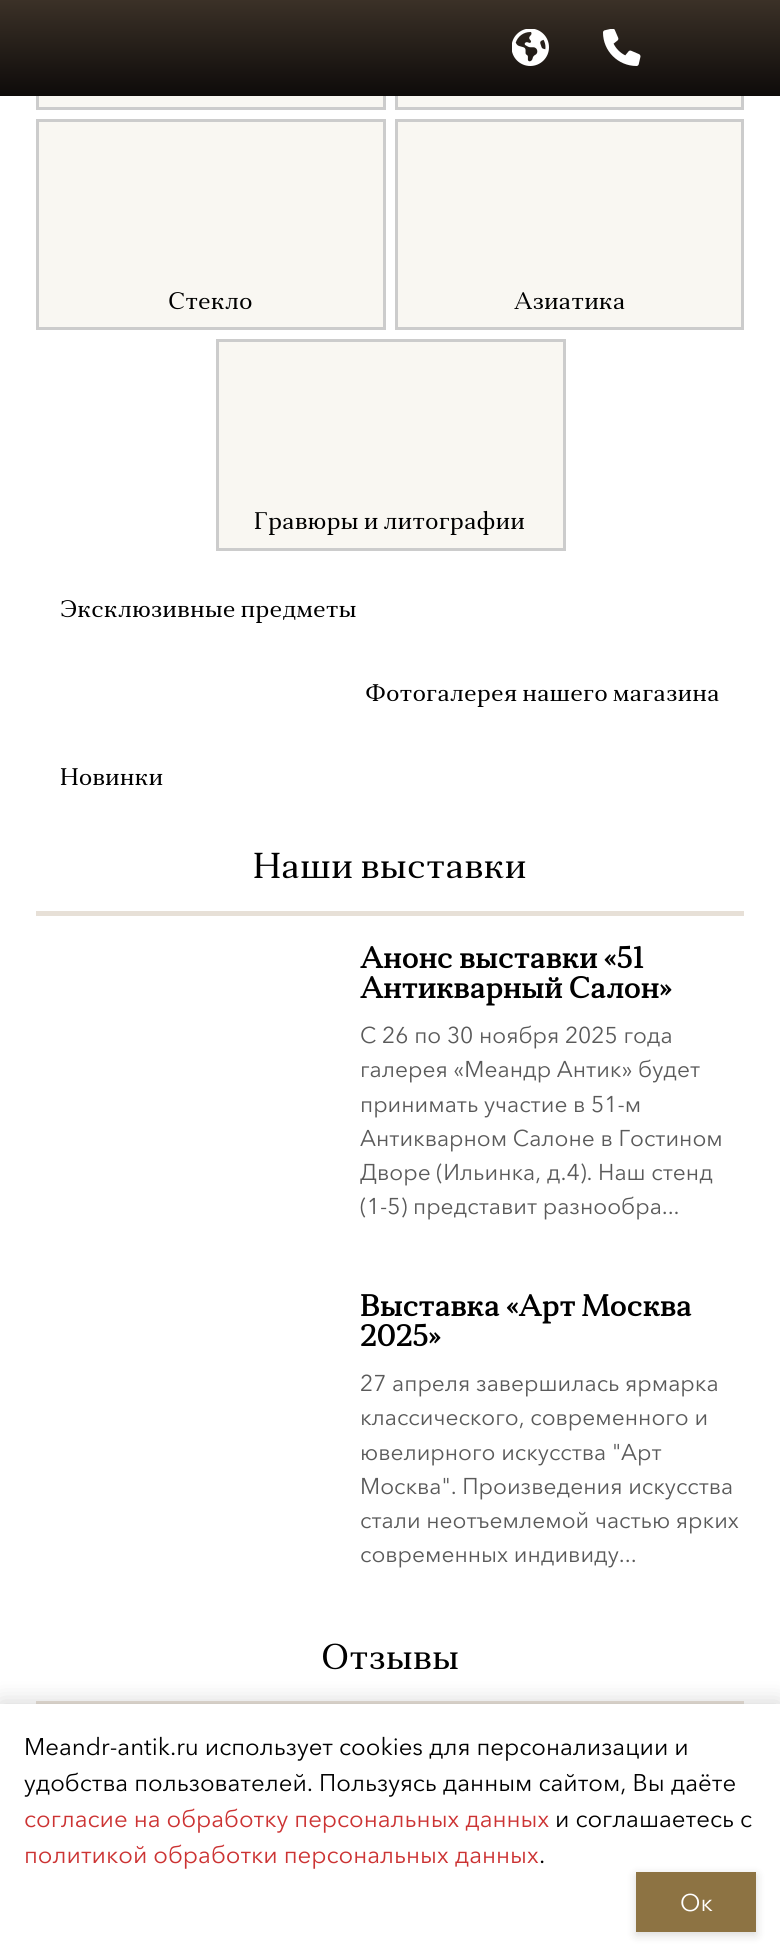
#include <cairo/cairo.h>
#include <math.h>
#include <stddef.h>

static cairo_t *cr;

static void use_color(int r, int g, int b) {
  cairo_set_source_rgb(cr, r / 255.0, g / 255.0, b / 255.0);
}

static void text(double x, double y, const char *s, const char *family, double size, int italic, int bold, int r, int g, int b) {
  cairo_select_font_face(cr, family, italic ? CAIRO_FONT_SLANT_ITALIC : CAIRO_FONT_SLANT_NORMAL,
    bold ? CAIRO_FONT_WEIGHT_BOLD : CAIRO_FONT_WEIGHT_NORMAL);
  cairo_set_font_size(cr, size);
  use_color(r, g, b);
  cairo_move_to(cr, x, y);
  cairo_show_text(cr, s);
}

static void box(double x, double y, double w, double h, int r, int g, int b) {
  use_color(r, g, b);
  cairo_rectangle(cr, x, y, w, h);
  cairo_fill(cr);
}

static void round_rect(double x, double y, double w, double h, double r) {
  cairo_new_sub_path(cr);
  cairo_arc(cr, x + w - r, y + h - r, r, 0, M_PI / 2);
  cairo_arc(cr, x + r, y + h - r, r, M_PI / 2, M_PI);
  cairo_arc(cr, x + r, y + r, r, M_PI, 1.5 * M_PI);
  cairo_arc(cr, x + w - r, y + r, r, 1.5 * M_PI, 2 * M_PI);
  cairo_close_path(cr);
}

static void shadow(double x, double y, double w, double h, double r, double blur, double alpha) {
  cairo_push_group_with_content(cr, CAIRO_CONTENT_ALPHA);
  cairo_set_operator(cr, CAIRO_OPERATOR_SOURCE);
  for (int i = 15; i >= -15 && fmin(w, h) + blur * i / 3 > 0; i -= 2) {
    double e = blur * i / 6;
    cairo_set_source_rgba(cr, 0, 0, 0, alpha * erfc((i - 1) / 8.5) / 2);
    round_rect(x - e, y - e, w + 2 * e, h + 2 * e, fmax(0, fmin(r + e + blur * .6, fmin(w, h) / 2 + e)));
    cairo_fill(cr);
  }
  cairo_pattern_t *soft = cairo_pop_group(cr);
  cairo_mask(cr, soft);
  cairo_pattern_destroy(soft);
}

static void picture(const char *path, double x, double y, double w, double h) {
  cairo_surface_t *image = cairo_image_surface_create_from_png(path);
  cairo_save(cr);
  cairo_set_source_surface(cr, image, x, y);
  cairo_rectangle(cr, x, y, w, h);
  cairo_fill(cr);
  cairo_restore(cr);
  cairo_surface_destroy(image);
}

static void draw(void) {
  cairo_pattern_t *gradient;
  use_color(255, 255, 255);
  cairo_paint(cr);
  box(39, 96, 344, 11, 249, 247, 242);
  cairo_rectangle(cr, 37.5, -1.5, 347, 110);
  use_color(204, 204, 204);
  cairo_set_line_width(cr, 3);
  cairo_stroke(cr);
  box(398, 96, 343, 11, 249, 247, 242);
  cairo_rectangle(cr, 396.5, -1.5, 346, 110);
  use_color(204, 204, 204);
  cairo_stroke(cr);
  gradient = cairo_pattern_create_linear(390, 0, 390, 96);
  cairo_pattern_add_color_stop_rgba(gradient, 0, 0.231, 0.192, 0.153, 1);
  cairo_pattern_add_color_stop_rgba(gradient, 1, 0.055, 0.043, 0.039, 1);
  cairo_set_source(cr, gradient);
  cairo_pattern_destroy(gradient);
  cairo_rectangle(cr, 0, 0, 780, 96);
  cairo_fill(cr);
  picture("img_01.png", 512, 29, 37, 37);
  picture("img_02.png", 603, 29, 38, 37);
  use_color(249, 247, 242);
  cairo_rectangle(cr, 37.5, 120.5, 347, 208);
  cairo_fill_preserve(cr);
  use_color(204, 204, 204);
  cairo_stroke(cr);
  use_color(249, 247, 242);
  cairo_rectangle(cr, 396.5, 120.5, 346, 208);
  cairo_fill_preserve(cr);
  use_color(204, 204, 204);
  cairo_stroke(cr);
  use_color(249, 247, 242);
  cairo_rectangle(cr, 217.5, 340.5, 347, 209);
  cairo_fill_preserve(cr);
  use_color(204, 204, 204);
  cairo_stroke(cr);
  box(36, 911, 708, 5, 231, 224, 215);
  box(36, 1701, 708, 3, 231, 224, 215);
  use_color(0, 0, 0);
  shadow(0, 1701, 780, 252, 0, 11, 0.15);
  box(0, 1704, 780, 251, 255, 255, 255);
  use_color(0, 0, 0);
  shadow(636, 1875, 120, 60, 0, 5, 0.15);
  box(636, 1872, 120, 60, 141, 115, 67);
  text(168, 309, "Стекло", "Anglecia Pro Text", 24, 0, 0, 0, 0, 0);
  text(514, 309, "Азиатика", "Anglecia Pro Text", 24, 0, 0, 0, 0, 0);
  text(254, 529, "Гравюры и литографии", "Anglecia Pro Text", 24, 0, 0, 0, 0, 0);
  text(60, 617, "Эксклюзивные предметы", "Anglecia Pro Text", 24, 0, 0, 0, 0, 0);
  text(365, 701, "Фотогалерея нашего магазина", "Anglecia Pro Text", 24, 0, 0, 0, 0, 0);
  text(60, 785, "Новинки", "Anglecia Pro Text", 24, 0, 0, 0, 0, 0);
  text(253, 878, "Наши выставки", "Anglecia Pro Text", 36, 0, 0, 0, 0, 0);
  text(360, 968, "Анонс выставки «51", "Anglecia Pro Text", 30, 0, 1, 0, 0, 0);
  text(360, 998, "Антикварный Салон»", "Anglecia Pro Text", 30, 0, 1, 0, 0, 0);
  text(360, 1043, "С 26 по 30 ноября 2025 года", "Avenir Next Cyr", 22.75, 0, 0, 90, 90, 90);
  text(360, 1077, "галерея «Меандр Антик» будет", "Avenir Next Cyr", 22.75, 0, 0, 90, 90, 90);
  text(360, 1112, "принимать участие в 51-м", "Avenir Next Cyr", 22.75, 0, 0, 90, 90, 90);
  text(360, 1146, "Антикварном Салоне в Гостином", "Avenir Next Cyr", 22.75, 0, 0, 90, 90, 90);
  text(360, 1180, "Дворе (Ильинка, д.4). Наш стенд", "Avenir Next Cyr", 22.75, 0, 0, 90, 90, 90);
  text(360, 1214, "(1-5) представит разнообра...", "Avenir Next Cyr", 22.75, 0, 0, 90, 90, 90);
  text(360, 1316, "Выставка «Арт Москва", "Anglecia Pro Text", 30, 0, 1, 0, 0, 0);
  text(360, 1346, "2025»", "Anglecia Pro Text", 30, 0, 1, 0, 0, 0);
  text(360, 1391, "27 апреля завершилась ярмарка", "Avenir Next Cyr", 22.75, 0, 0, 90, 90, 90);
  text(360, 1425, "классического, современного и", "Avenir Next Cyr", 22.75, 0, 0, 90, 90, 90);
  text(360, 1460, "ювелирного искусства \"Арт", "Avenir Next Cyr", 22.75, 0, 0, 90, 90, 90);
  text(360, 1494, "Москва\". Произведения искусства", "Avenir Next Cyr", 22.75, 0, 0, 90, 90, 90);
  text(360, 1528, "стали неотъемлемой частью ярких", "Avenir Next Cyr", 22.75, 0, 0, 90, 90, 90);
  text(360, 1562, "современных индивиду...", "Avenir Next Cyr", 22.75, 0, 0, 90, 90, 90);
  text(321, 1669, "Отзывы", "Anglecia Pro Text", 36, 0, 0, 0, 0, 0);
  text(24, 1755, "Meandr-antik.ru использует cookies для персонализации и", "Avenir Next Cyr", 24, 0, 0, 0, 0, 0);
  text(24, 1791, "удобства пользователей. Пользуясь данным сайтом, Вы даёте", "Avenir Next Cyr", 24, 0, 0, 0, 0, 0);
  text(24, 1827, "согласие на обработку персональных данных", "Avenir Next Cyr", 24, 0, 0, 204, 51, 51);
  text(555, 1827, "и соглашаетесь с", "Avenir Next Cyr", 24, 0, 0, 0, 0, 0);
  text(24, 1863, "политикой обработки персональных данных", "Avenir Next Cyr", 24, 0, 0, 204, 51, 51);
  text(539, 1863, ".", "Avenir Next Cyr", 24, 0, 0, 0, 0, 0);
  text(680, 1911, "Ок", "Avenir Next Cyr", 24, 0, 0, 255, 255, 255);
}

int main(void) {
  cairo_surface_t *surface = cairo_image_surface_create(CAIRO_FORMAT_RGB24, 780, 1955);
  cr = cairo_create(surface);
  cairo_font_options_t *options = cairo_font_options_create();
  cairo_font_options_set_hint_metrics(options, CAIRO_HINT_METRICS_OFF);
  cairo_font_options_set_hint_style(options, CAIRO_HINT_STYLE_NONE);
  cairo_set_font_options(cr, options);
  cairo_set_miter_limit(cr, 4);
  draw();
  cairo_surface_write_to_png(surface, "out.png");
  cairo_font_options_destroy(options);
  cairo_destroy(cr);
  cairo_surface_destroy(surface);
  return 0;
}
